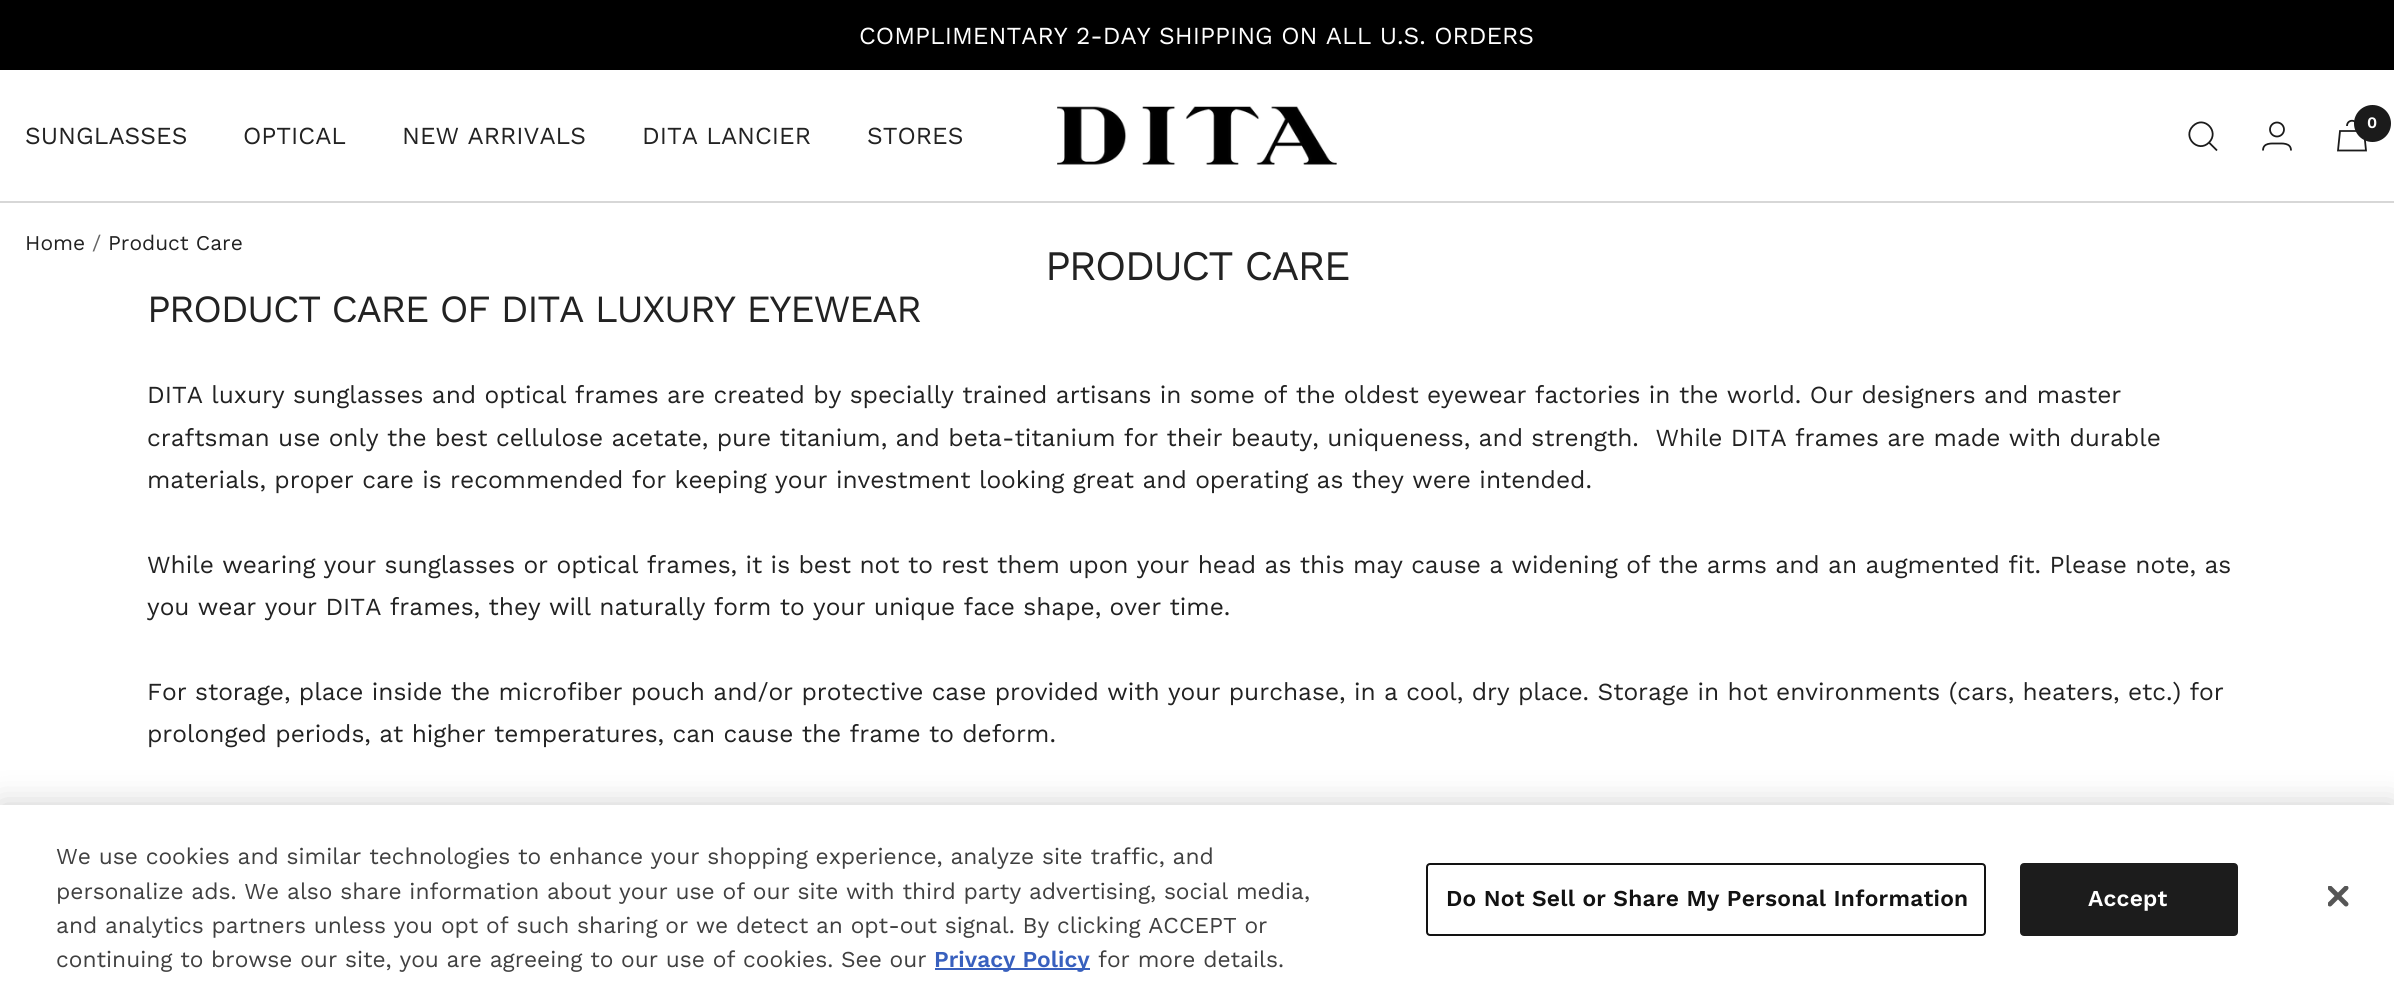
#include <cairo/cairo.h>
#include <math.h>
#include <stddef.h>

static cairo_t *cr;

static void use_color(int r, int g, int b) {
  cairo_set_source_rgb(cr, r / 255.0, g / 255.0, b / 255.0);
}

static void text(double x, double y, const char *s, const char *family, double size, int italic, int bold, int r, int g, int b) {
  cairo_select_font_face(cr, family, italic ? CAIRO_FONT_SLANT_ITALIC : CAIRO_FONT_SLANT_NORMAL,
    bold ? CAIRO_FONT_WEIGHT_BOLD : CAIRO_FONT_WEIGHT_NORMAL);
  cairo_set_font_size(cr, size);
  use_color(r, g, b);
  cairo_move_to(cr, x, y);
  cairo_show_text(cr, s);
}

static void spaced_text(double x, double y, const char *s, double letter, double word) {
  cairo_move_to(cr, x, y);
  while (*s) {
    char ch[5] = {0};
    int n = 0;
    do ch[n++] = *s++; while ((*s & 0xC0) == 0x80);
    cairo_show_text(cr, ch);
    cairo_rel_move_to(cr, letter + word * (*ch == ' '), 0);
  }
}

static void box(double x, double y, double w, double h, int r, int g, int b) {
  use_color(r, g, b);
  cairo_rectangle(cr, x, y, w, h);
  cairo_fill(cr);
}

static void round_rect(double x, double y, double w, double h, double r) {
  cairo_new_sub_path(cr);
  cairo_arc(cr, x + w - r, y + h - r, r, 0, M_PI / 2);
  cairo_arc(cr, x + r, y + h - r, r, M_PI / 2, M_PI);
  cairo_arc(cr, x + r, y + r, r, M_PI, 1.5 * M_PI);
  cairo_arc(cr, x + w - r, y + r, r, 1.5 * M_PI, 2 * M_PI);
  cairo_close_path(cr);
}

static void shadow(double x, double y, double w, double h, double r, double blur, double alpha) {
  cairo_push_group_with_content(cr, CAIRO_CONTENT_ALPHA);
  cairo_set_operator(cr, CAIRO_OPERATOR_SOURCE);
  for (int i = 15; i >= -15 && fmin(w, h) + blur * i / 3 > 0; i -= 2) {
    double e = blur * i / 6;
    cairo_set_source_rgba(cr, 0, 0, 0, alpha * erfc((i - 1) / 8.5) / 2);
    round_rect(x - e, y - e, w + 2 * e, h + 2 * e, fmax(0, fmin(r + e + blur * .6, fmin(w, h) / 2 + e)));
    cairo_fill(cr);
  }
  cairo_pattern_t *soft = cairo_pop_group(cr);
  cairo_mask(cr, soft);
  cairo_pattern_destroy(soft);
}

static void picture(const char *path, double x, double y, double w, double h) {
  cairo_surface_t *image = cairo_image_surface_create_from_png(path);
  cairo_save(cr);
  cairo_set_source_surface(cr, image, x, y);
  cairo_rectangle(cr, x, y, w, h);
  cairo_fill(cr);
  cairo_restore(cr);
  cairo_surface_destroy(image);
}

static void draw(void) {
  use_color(255, 255, 255);
  cairo_paint(cr);
  box(0, 0, 2394, 70, 0, 0, 0);
  box(0, 201, 2394, 2, 215, 215, 215);
  picture("img_01.png", 1057, 106, 280, 59);
  cairo_new_path(cr);
  cairo_move_to(cr, 2209, 142.5);
  cairo_curve_to(cr, 2220, 131.5, 2204, 115, 2193, 126);
  cairo_curve_to(cr, 2182, 137, 2198, 153.5, 2209, 142.5);
  cairo_close_path(cr);
  cairo_move_to(cr, 2209, 142.5);
  cairo_line_to(cr, 2217, 150.5);
  use_color(27, 27, 27);
  cairo_set_line_width(cr, 1.8);
  cairo_stroke(cr);
  cairo_arc(cr, 2277, 129.5, 7, 0, 2 * M_PI);
  cairo_stroke(cr);
  cairo_new_path(cr);
  cairo_move_to(cr, 2263, 150.5);
  cairo_curve_to(cr, 2263, 142.5, 2271.5, 143.5, 2277, 143.5);
  cairo_curve_to(cr, 2282, 143.5, 2291, 142.5, 2291, 150.5);
  cairo_stroke(cr);
  cairo_new_path(cr);
  cairo_move_to(cr, 2340, 131);
  cairo_line_to(cr, 2364, 131);
  cairo_line_to(cr, 2366, 150.5);
  cairo_line_to(cr, 2338, 150.5);
  cairo_close_path(cr);
  cairo_move_to(cr, 2357, 126);
  cairo_curve_to(cr, 2357, 119, 2347, 119, 2347, 126);
  cairo_stroke(cr);
  cairo_arc(cr, 2372.5, 123.5, 18.5, 0, 2 * M_PI);
  cairo_fill(cr);
  use_color(0, 0, 0);
  shadow(0, 805, 2394, 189, 0, 16, 0.2);
  box(0, 805, 2394, 188, 255, 255, 255);
  box(935, 968, 155, 2, 56, 96, 190);
  round_rect(1427, 864, 558, 71, 3);
  use_color(18, 18, 18);
  cairo_set_line_width(cr, 2);
  cairo_stroke(cr);
  use_color(28, 28, 28);
  round_rect(2021, 864, 216, 71, 3);
  cairo_fill_preserve(cr);
  cairo_stroke(cr);
  picture("img_02.png", 2328, 886, 21, 21);
  text(859, 44, "COMPLIMENTARY 2-DAY SHIPPING ON ALL U.S. ORDERS", "Work Sans", 24.5, 0, 0, 255, 255, 255);
  text(2367, 128, "0", "Work Sans SemiBold", 16, 0, 0, 255, 255, 255);
  text(25, 144, "SUNGLASSES", "Work Sans", 24.5, 0, 0, 34, 34, 34);
  text(243, 144, "OPTICAL", "Work Sans", 24.5, 0, 0, 34, 34, 34);
  text(402, 144, "NEW ARRIVALS", "Work Sans", 24.5, 0, 0, 34, 34, 34);
  text(642, 144, "DITA LANCIER", "Work Sans", 24.5, 0, 0, 34, 34, 34);
  text(867, 144, "STORES", "Work Sans", 24.5, 0, 0, 34, 34, 34);
  text(25, 250, "Home", "Work Sans", 21, 0, 0, 34, 34, 34);
  text(92, 250, "/", "Work Sans", 21, 0, 0, 100, 100, 100);
  text(108, 250, "Product Care", "Work Sans", 21, 0, 0, 34, 34, 34);
  cairo_set_font_size(cr, 42);
  spaced_text(1045, 280, "PRODUCT CARE", -1.75, 0);
  cairo_set_font_size(cr, 38.5);
  spaced_text(147, 322, "PRODUCT CARE OF DITA LUXURY EYEWEAR", -1.4, 0);
  text(147, 403, "DITA luxury sunglasses and optical frames are created by specially trained artisans in some of the oldest eyewear factories in the world. Our designers and master", "Work Sans", 24.5, 0, 0, 34, 34, 34);
  text(147, 446, "craftsman use only the best cellulose acetate, pure titanium, and beta-titanium for their beauty, uniqueness, and strength.  While DITA frames are made with durable", "Work Sans", 24.5, 0, 0, 34, 34, 34);
  text(147, 488, "materials, proper care is recommended for keeping your investment looking great and operating as they were intended.", "Work Sans", 24.5, 0, 0, 34, 34, 34);
  text(147, 573, "While wearing your sunglasses or optical frames, it is best not to rest them upon your head as this may cause a widening of the arms and an augmented fit. Please note, as", "Work Sans", 24.5, 0, 0, 34, 34, 34);
  text(147, 615, "you wear your DITA frames, they will naturally form to your unique face shape, over time.", "Work Sans", 24.5, 0, 0, 34, 34, 34);
  text(147, 700, "For storage, place inside the microfiber pouch and/or protective case provided with your purchase, in a cool, dry place. Storage in hot environments (cars, heaters, etc.) for", "Work Sans", 24.5, 0, 0, 34, 34, 34);
  text(147, 742, "prolonged periods, at higher temperatures, can cause the frame to deform.", "Work Sans", 24.5, 0, 0, 34, 34, 34);
  text(56, 864, "We use cookies and similar technologies to enhance your shopping experience, analyze site traffic, and", "Work Sans", 22.75, 0, 0, 64, 64, 64);
  text(56, 899, "personalize ads. We also share information about your use of our site with third party advertising, social media,", "Work Sans", 22.75, 0, 0, 64, 64, 64);
  text(56, 933, "and analytics partners unless you opt of such sharing or we detect an opt-out signal. By clicking ACCEPT or", "Work Sans", 22.75, 0, 0, 64, 64, 64);
  text(56, 967, "continuing to browse our site, you are agreeing to our use of cookies. See our", "Work Sans", 22.75, 0, 0, 64, 64, 64);
  text(934, 967, "Privacy Policy", "Work Sans SemiBold", 22.75, 0, 0, 56, 96, 190);
  text(1098, 967, "for more details.", "Work Sans", 22.75, 0, 0, 64, 64, 64);
  cairo_select_font_face(cr, "Work Sans SemiBold", CAIRO_FONT_SLANT_NORMAL, CAIRO_FONT_WEIGHT_NORMAL);
  use_color(18, 18, 18);
  spaced_text(1446, 906, "Do Not Sell or Share My Personal Information", 0.25, 0);
  use_color(255, 255, 255);
  spaced_text(2088, 906, "Accept", 0.25, 0);
}

int main(void) {
  cairo_surface_t *surface = cairo_image_surface_create(CAIRO_FORMAT_RGB24, 2394, 993);
  cr = cairo_create(surface);
  cairo_font_options_t *options = cairo_font_options_create();
  cairo_font_options_set_hint_metrics(options, CAIRO_HINT_METRICS_OFF);
  cairo_font_options_set_hint_style(options, CAIRO_HINT_STYLE_NONE);
  cairo_set_font_options(cr, options);
  cairo_set_miter_limit(cr, 4);
  draw();
  cairo_surface_write_to_png(surface, "out.png");
  cairo_font_options_destroy(options);
  cairo_destroy(cr);
  cairo_surface_destroy(surface);
  return 0;
}
